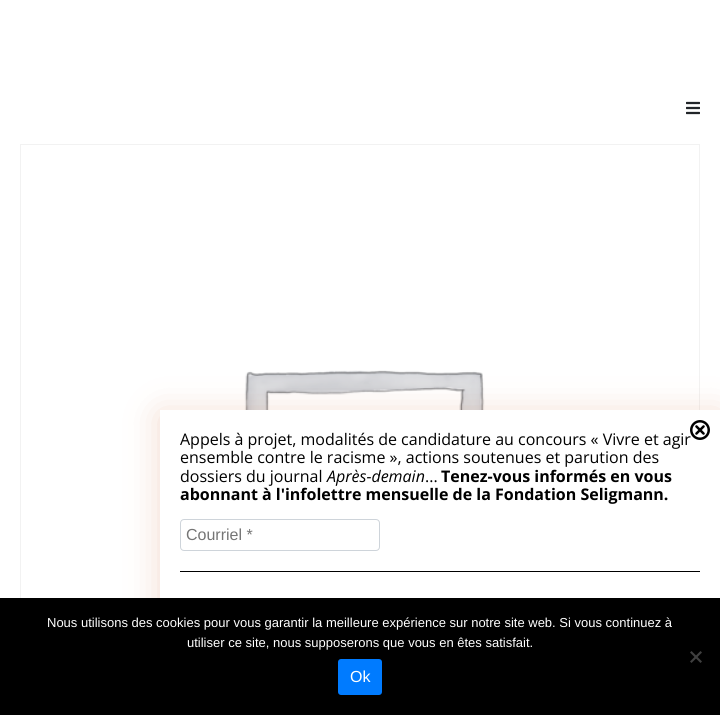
#include <cairo/cairo.h>
#include <math.h>
#include <stddef.h>

static cairo_t *cr;

static void use_color(int r, int g, int b) {
  cairo_set_source_rgb(cr, r / 255.0, g / 255.0, b / 255.0);
}

static void text(double x, double y, const char *s, const char *family, double size, int italic, int bold, int r, int g, int b) {
  cairo_select_font_face(cr, family, italic ? CAIRO_FONT_SLANT_ITALIC : CAIRO_FONT_SLANT_NORMAL,
    bold ? CAIRO_FONT_WEIGHT_BOLD : CAIRO_FONT_WEIGHT_NORMAL);
  cairo_set_font_size(cr, size);
  use_color(r, g, b);
  cairo_move_to(cr, x, y);
  cairo_show_text(cr, s);
}

static void box(double x, double y, double w, double h, int r, int g, int b) {
  use_color(r, g, b);
  cairo_rectangle(cr, x, y, w, h);
  cairo_fill(cr);
}

static void round_rect(double x, double y, double w, double h, double r) {
  cairo_new_sub_path(cr);
  cairo_arc(cr, x + w - r, y + h - r, r, 0, M_PI / 2);
  cairo_arc(cr, x + r, y + h - r, r, M_PI / 2, M_PI);
  cairo_arc(cr, x + r, y + r, r, M_PI, 1.5 * M_PI);
  cairo_arc(cr, x + w - r, y + r, r, 1.5 * M_PI, 2 * M_PI);
  cairo_close_path(cr);
}

static void shadow(double x, double y, double w, double h, double r, double blur, double alpha) {
  cairo_push_group_with_content(cr, CAIRO_CONTENT_ALPHA);
  cairo_set_operator(cr, CAIRO_OPERATOR_SOURCE);
  for (int i = 15; i >= -15 && fmin(w, h) + blur * i / 3 > 0; i -= 2) {
    double e = blur * i / 6;
    cairo_set_source_rgba(cr, 0, 0, 0, alpha * erfc((i - 1) / 8.5) / 2);
    round_rect(x - e, y - e, w + 2 * e, h + 2 * e, fmax(0, fmin(r + e + blur * .6, fmin(w, h) / 2 + e)));
    cairo_fill(cr);
  }
  cairo_pattern_t *soft = cairo_pop_group(cr);
  cairo_mask(cr, soft);
  cairo_pattern_destroy(soft);
}

static void picture(const char *path, double x, double y, double w, double h) {
  cairo_surface_t *image = cairo_image_surface_create_from_png(path);
  cairo_save(cr);
  cairo_set_source_surface(cr, image, x, y);
  cairo_rectangle(cr, x, y, w, h);
  cairo_fill(cr);
  cairo_restore(cr);
  cairo_surface_destroy(image);
}

static void draw(void) {
  use_color(255, 255, 255);
  cairo_paint(cr);
  picture("img_01.png", 686, 101, 14, 14);
  cairo_rectangle(cr, 20.5, 144.5, 679, 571);
  use_color(242, 242, 242);
  cairo_set_line_width(cr, 1);
  cairo_stroke(cr);
  picture("img_02.png", 244, 370, 241, 40);
  use_color(195, 65, 2);
  shadow(160, 414, 560, 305, 0, 17.5, 0.2);
  box(160, 410, 560, 188, 255, 255, 255);
  round_rect(180.5, 519.5, 199, 31, 3.5);
  use_color(206, 212, 218);
  cairo_stroke(cr);
  box(180, 571, 520, 1, 0, 0, 0);
  box(0, 598, 720, 117, 0, 0, 0);
  use_color(64, 64, 64);
  cairo_new_path(cr);
  cairo_move_to(cr, 700.5, 651);
  cairo_line_to(cr, 702, 652.5);
  cairo_line_to(cr, 691.5, 663);
  cairo_line_to(cr, 690, 661.5);
  cairo_close_path(cr);
  cairo_fill(cr);
  cairo_new_path(cr);
  cairo_move_to(cr, 690, 652.5);
  cairo_line_to(cr, 691.5, 651);
  cairo_line_to(cr, 702, 661.5);
  cairo_line_to(cr, 700.5, 663);
  cairo_close_path(cr);
  cairo_fill(cr);
  use_color(0, 123, 255);
  round_rect(338, 659, 44, 36, 3);
  cairo_fill(cr);
  text(180, 445, "Appels à projet, modalités de candidature au concours « Vivre et agir", "Open Sans", 16, 0, 0, 0, 0, 0);
  picture("img_03.png", 690, 420, 20, 20);
  text(180, 463, "ensemble contre le racisme », actions soutenues et parution des", "Open Sans", 16, 0, 0, 0, 0, 0);
  text(180, 482, "dossiers du journal", "Open Sans", 16, 0, 0, 0, 0, 0);
  text(327, 482, "Après-demain", "Open Sans", 16, 1, 0, 0, 0, 0);
  text(425, 482, "...", "Open Sans", 16, 0, 0, 0, 0, 0);
  text(441, 482, "Tenez-vous informés en vous", "Open Sans", 16, 0, 1, 0, 0, 0);
  text(180, 500, "abonnant à l'infolettre mensuelle de la Fondation Seligmann.", "Open Sans", 16, 0, 1, 0, 0, 0);
  text(186, 540, "Courriel *", "Liberation Sans", 16, 0, 0, 117, 117, 117);
  text(47, 627, "Nous utilisons des cookies pour vous garantir la meilleure expérience sur notre site web. Si vous continuez à", "Liberation Sans", 13, 0, 0, 255, 255, 255);
  text(187, 647, "utiliser ce site, nous supposerons que vous en êtes satisfait.", "Liberation Sans", 13, 0, 0, 255, 255, 255);
  text(350, 682, "Ok", "Liberation Sans", 16, 0, 0, 255, 255, 255);
}

int main(void) {
  cairo_surface_t *surface = cairo_image_surface_create(CAIRO_FORMAT_RGB24, 720, 715);
  cr = cairo_create(surface);
  cairo_font_options_t *options = cairo_font_options_create();
  cairo_font_options_set_hint_metrics(options, CAIRO_HINT_METRICS_OFF);
  cairo_font_options_set_hint_style(options, CAIRO_HINT_STYLE_NONE);
  cairo_set_font_options(cr, options);
  cairo_set_miter_limit(cr, 4);
  draw();
  cairo_surface_write_to_png(surface, "out.png");
  cairo_font_options_destroy(options);
  cairo_destroy(cr);
  cairo_surface_destroy(surface);
  return 0;
}
